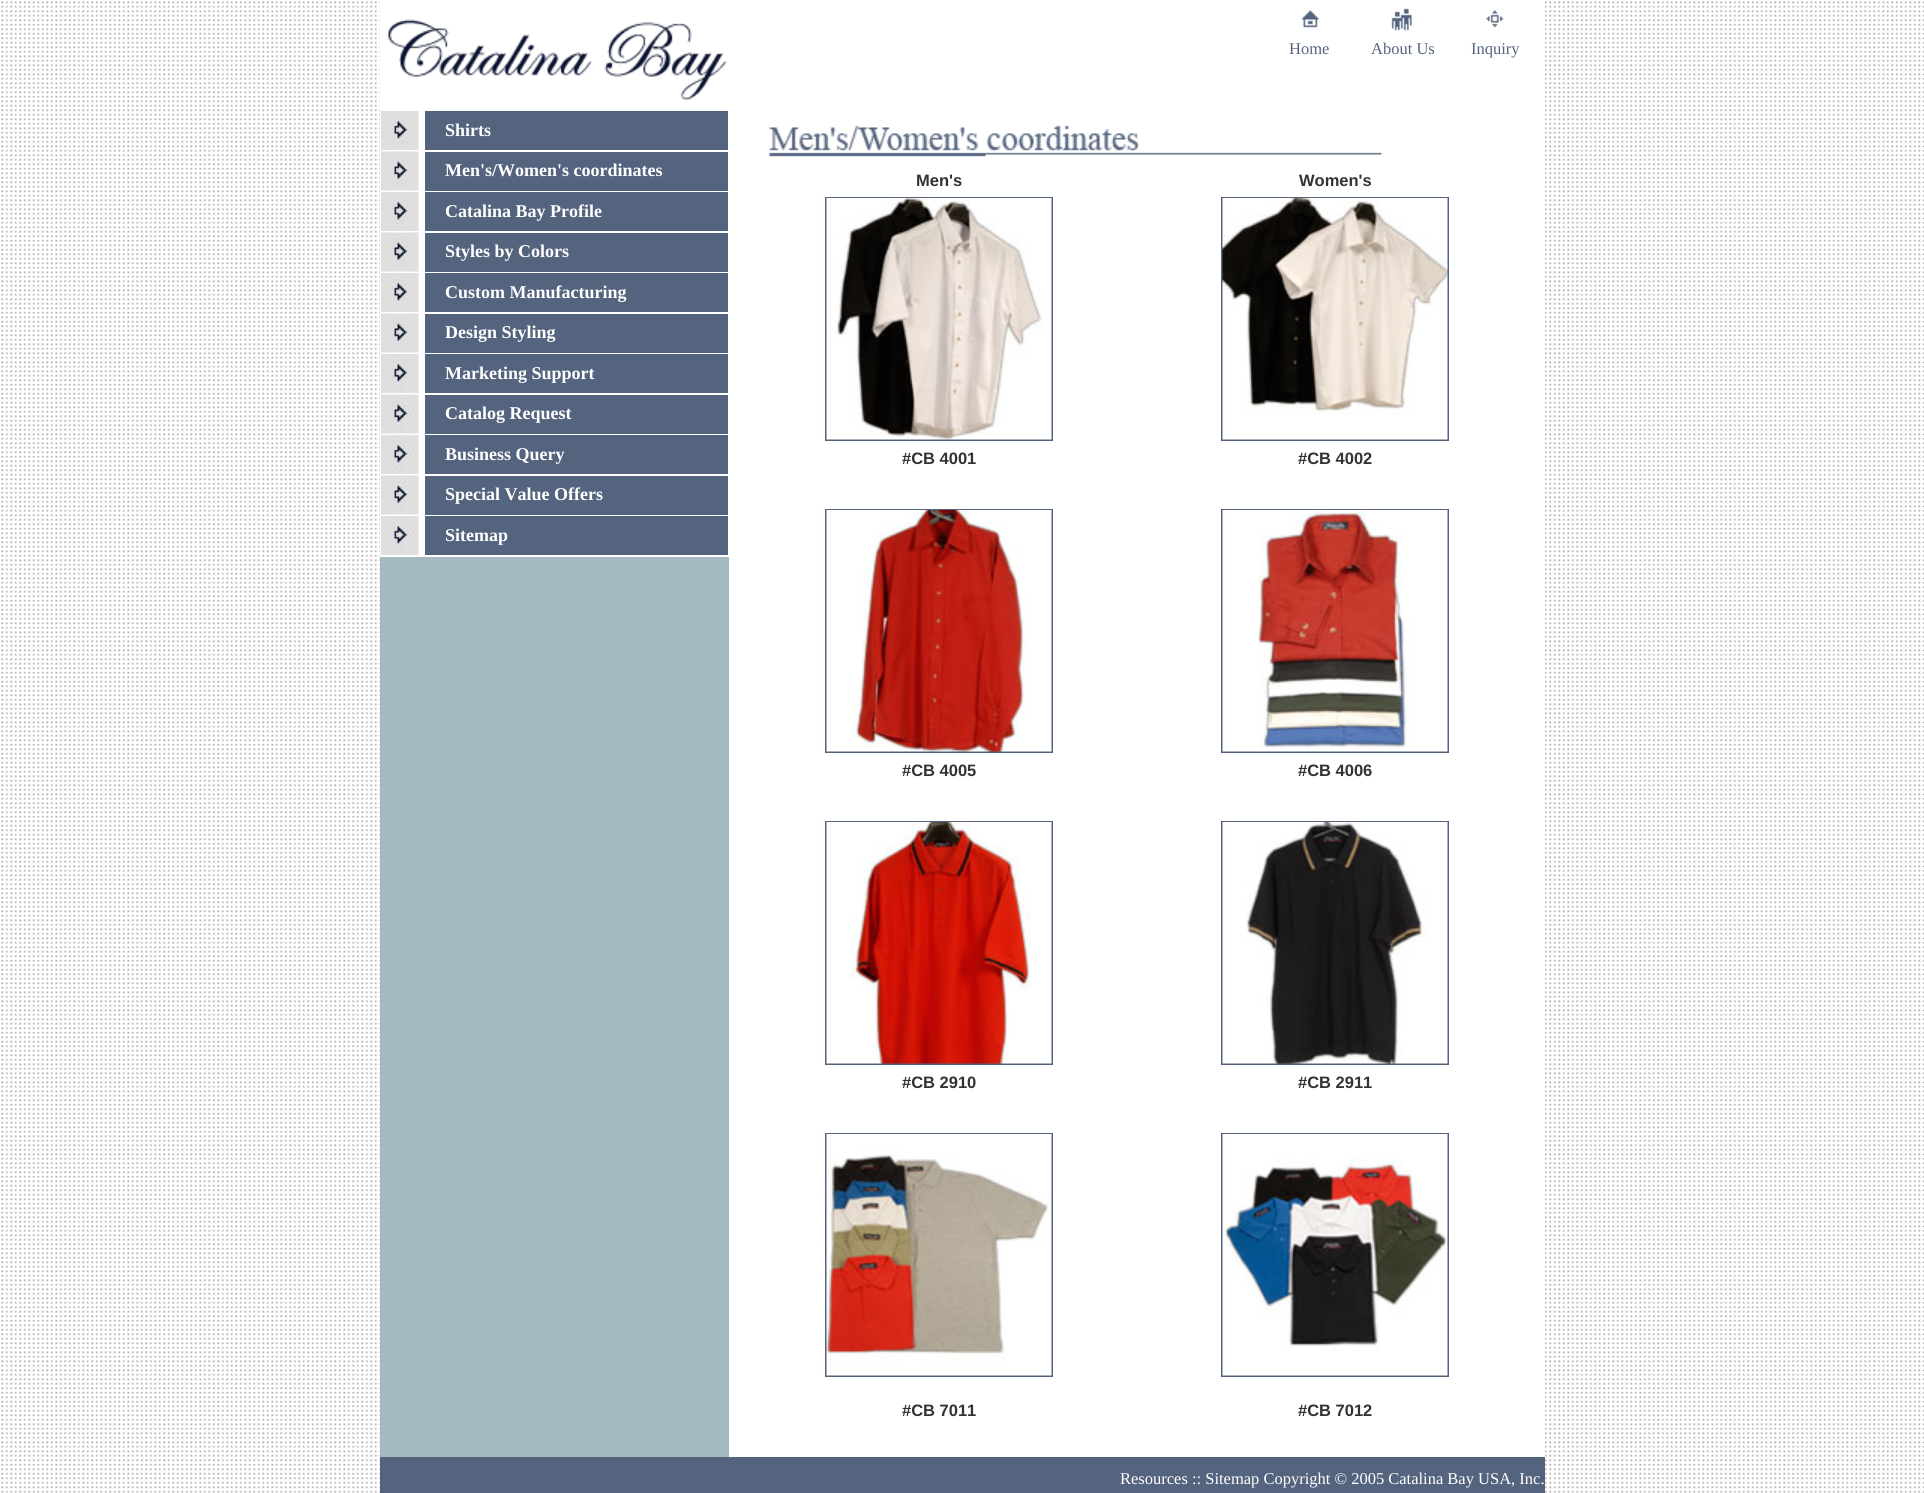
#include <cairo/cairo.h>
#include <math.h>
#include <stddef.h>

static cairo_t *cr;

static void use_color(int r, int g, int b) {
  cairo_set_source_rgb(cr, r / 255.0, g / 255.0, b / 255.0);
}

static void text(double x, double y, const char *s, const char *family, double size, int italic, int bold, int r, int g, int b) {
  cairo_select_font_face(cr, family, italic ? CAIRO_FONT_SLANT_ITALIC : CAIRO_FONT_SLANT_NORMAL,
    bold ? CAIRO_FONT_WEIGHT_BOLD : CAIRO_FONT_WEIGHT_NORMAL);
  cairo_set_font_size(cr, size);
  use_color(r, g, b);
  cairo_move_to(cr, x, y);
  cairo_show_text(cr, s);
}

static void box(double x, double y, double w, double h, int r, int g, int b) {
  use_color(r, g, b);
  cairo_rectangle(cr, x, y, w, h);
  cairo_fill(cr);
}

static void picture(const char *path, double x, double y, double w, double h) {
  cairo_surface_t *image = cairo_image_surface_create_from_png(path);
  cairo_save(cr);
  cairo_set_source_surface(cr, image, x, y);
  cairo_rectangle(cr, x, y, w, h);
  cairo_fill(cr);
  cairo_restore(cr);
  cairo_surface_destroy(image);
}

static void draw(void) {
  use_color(255, 255, 255);
  cairo_paint(cr);
  picture("img_01.png", 1, 1, 1923, 1492);
  box(380, 1, 1165, 1456, 255, 255, 255);
  picture("img_02.png", 379, 1, 348, 109);
  picture("img_03.png", 1301, 10, 18, 18);
  picture("img_04.png", 1391, 8, 21, 23);
  picture("img_05.png", 1486, 10, 18, 18);
  picture("img_06.png", 381, 111, 38, 39);
  box(425, 111, 303, 39, 84, 100, 126);
  picture("img_07.png", 381, 151, 38, 40);
  box(425, 152, 303, 39, 84, 100, 126);
  picture("img_06.png", 381, 192, 38, 39);
  box(425, 192, 303, 39, 84, 100, 126);
  picture("img_07.png", 381, 232, 38, 40);
  box(425, 233, 303, 39, 84, 100, 126);
  picture("img_06.png", 381, 273, 38, 39);
  box(425, 273, 303, 39, 84, 100, 126);
  picture("img_07.png", 381, 313, 38, 40);
  box(425, 314, 303, 39, 84, 100, 126);
  picture("img_06.png", 381, 354, 38, 39);
  box(425, 354, 303, 39, 84, 100, 126);
  picture("img_07.png", 381, 394, 38, 40);
  box(425, 395, 303, 39, 84, 100, 126);
  picture("img_06.png", 381, 435, 38, 39);
  box(425, 435, 303, 39, 84, 100, 126);
  picture("img_07.png", 381, 475, 38, 40);
  box(425, 476, 303, 39, 84, 100, 126);
  picture("img_06.png", 381, 516, 38, 39);
  box(425, 516, 303, 39, 84, 100, 126);
  box(380, 557, 349, 900, 165, 185, 194);
  picture("img_08.png", 769, 125, 613, 32);
  cairo_rectangle(cr, 826, 198, 226, 242);
  use_color(84, 100, 126);
  cairo_stroke(cr);
  picture("img_09.png", 826, 198, 226, 242);
  cairo_rectangle(cr, 1222, 198, 226, 242);
  cairo_stroke(cr);
  picture("img_10.png", 1222, 198, 226, 242);
  cairo_rectangle(cr, 826, 510, 226, 242);
  cairo_stroke(cr);
  picture("img_11.png", 826, 510, 226, 242);
  cairo_rectangle(cr, 1222, 510, 226, 242);
  cairo_stroke(cr);
  picture("img_12.png", 1222, 510, 226, 242);
  cairo_rectangle(cr, 826, 822, 226, 242);
  cairo_stroke(cr);
  picture("img_13.png", 826, 822, 226, 242);
  cairo_rectangle(cr, 1222, 822, 226, 242);
  cairo_stroke(cr);
  picture("img_14.png", 1222, 822, 226, 242);
  cairo_rectangle(cr, 826, 1134, 226, 242);
  cairo_stroke(cr);
  picture("img_15.png", 826, 1134, 226, 242);
  cairo_rectangle(cr, 1222, 1134, 226, 242);
  cairo_stroke(cr);
  picture("img_16.png", 1222, 1134, 226, 242);
  box(380, 1457, 1165, 36, 84, 100, 126);
  text(1289, 54, "Home", "Liberation Serif", 16.5, 0, 0, 84, 100, 126);
  text(1371, 54, "About Us", "Liberation Serif", 16.5, 0, 0, 84, 100, 126);
  text(1471, 54, "Inquiry", "Liberation Serif", 16.5, 0, 0, 84, 100, 126);
  text(445, 136, "Shirts", "Liberation Serif", 18, 0, 1, 255, 255, 255);
  text(445, 176, "Men's/Women's coordinates", "Liberation Serif", 18, 0, 1, 255, 255, 255);
  text(445, 217, "Catalina Bay Profile", "Liberation Serif", 18, 0, 1, 255, 255, 255);
  text(445, 257, "Styles by Colors", "Liberation Serif", 18, 0, 1, 255, 255, 255);
  text(445, 298, "Custom Manufacturing", "Liberation Serif", 18, 0, 1, 255, 255, 255);
  text(445, 338, "Design Styling", "Liberation Serif", 18, 0, 1, 255, 255, 255);
  text(445, 379, "Marketing Support", "Liberation Serif", 18, 0, 1, 255, 255, 255);
  text(445, 419, "Catalog Request", "Liberation Serif", 18, 0, 1, 255, 255, 255);
  text(445, 460, "Business Query", "Liberation Serif", 18, 0, 1, 255, 255, 255);
  text(445, 500, "Special Value Offers", "Liberation Serif", 18, 0, 1, 255, 255, 255);
  text(445, 541, "Sitemap", "Liberation Serif", 18, 0, 1, 255, 255, 255);
  text(916, 186, "Men's", "Liberation Sans", 16.5, 0, 1, 51, 51, 51);
  text(1299, 186, "Women's", "Liberation Sans", 16.5, 0, 1, 51, 51, 51);
  text(902, 464, "#CB 4001", "Liberation Sans", 16.5, 0, 1, 51, 51, 51);
  text(1298, 464, "#CB 4002", "Liberation Sans", 16.5, 0, 1, 51, 51, 51);
  text(902, 776, "#CB 4005", "Liberation Sans", 16.5, 0, 1, 51, 51, 51);
  text(1298, 776, "#CB 4006", "Liberation Sans", 16.5, 0, 1, 51, 51, 51);
  text(902, 1088, "#CB 2910", "Liberation Sans", 16.5, 0, 1, 51, 51, 51);
  text(1298, 1088, "#CB 2911", "Liberation Sans", 16.5, 0, 1, 51, 51, 51);
  text(902, 1416, "#CB 7011", "Liberation Sans", 16.5, 0, 1, 51, 51, 51);
  text(1298, 1416, "#CB 7012", "Liberation Sans", 16.5, 0, 1, 51, 51, 51);
  text(1120, 1484, "Resources :: Sitemap Copyright © 2005 Catalina Bay USA, Inc.", "Liberation Serif", 16.5, 0, 0, 255, 255, 255);
}

int main(void) {
  cairo_surface_t *surface = cairo_image_surface_create(CAIRO_FORMAT_RGB24, 1924, 1493);
  cr = cairo_create(surface);
  cairo_font_options_t *options = cairo_font_options_create();
  cairo_font_options_set_hint_metrics(options, CAIRO_HINT_METRICS_OFF);
  cairo_font_options_set_hint_style(options, CAIRO_HINT_STYLE_NONE);
  cairo_set_font_options(cr, options);
  cairo_set_miter_limit(cr, 4);
  draw();
  cairo_surface_write_to_png(surface, "out.png");
  cairo_font_options_destroy(options);
  cairo_destroy(cr);
  cairo_surface_destroy(surface);
  return 0;
}
